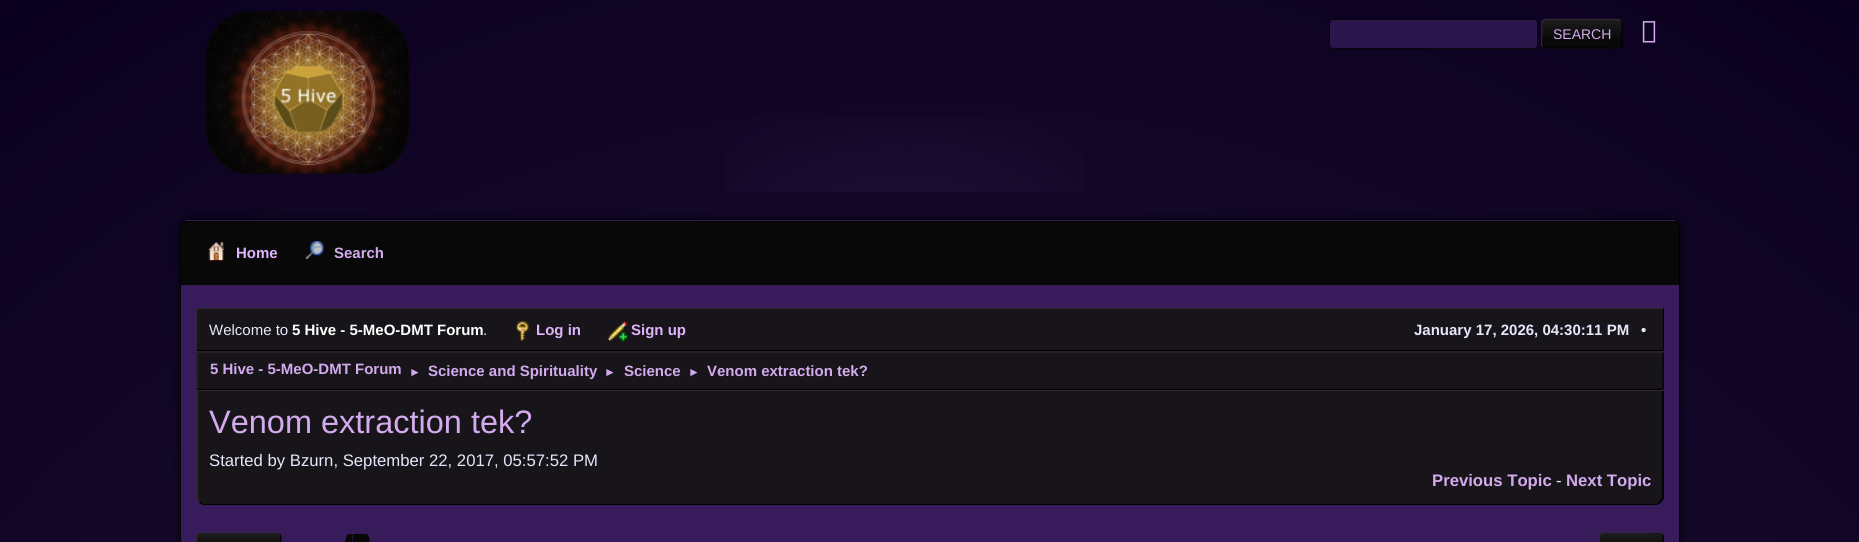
#include <cairo/cairo.h>
#include <math.h>
#include <stddef.h>

static cairo_t *cr;

static void use_color(int r, int g, int b) {
  cairo_set_source_rgb(cr, r / 255.0, g / 255.0, b / 255.0);
}

static void text(double x, double y, const char *s, const char *family, double size, int italic, int bold, int r, int g, int b) {
  cairo_select_font_face(cr, family, italic ? CAIRO_FONT_SLANT_ITALIC : CAIRO_FONT_SLANT_NORMAL,
    bold ? CAIRO_FONT_WEIGHT_BOLD : CAIRO_FONT_WEIGHT_NORMAL);
  cairo_set_font_size(cr, size);
  use_color(r, g, b);
  cairo_move_to(cr, x, y);
  cairo_show_text(cr, s);
}

static void box(double x, double y, double w, double h, int r, int g, int b) {
  use_color(r, g, b);
  cairo_rectangle(cr, x, y, w, h);
  cairo_fill(cr);
}

static void round_rect(double x, double y, double w, double h, double r) {
  cairo_new_sub_path(cr);
  cairo_arc(cr, x + w - r, y + h - r, r, 0, M_PI / 2);
  cairo_arc(cr, x + r, y + h - r, r, M_PI / 2, M_PI);
  cairo_arc(cr, x + r, y + r, r, M_PI, 1.5 * M_PI);
  cairo_arc(cr, x + w - r, y + r, r, 1.5 * M_PI, 2 * M_PI);
  cairo_close_path(cr);
}

static void shadow(double x, double y, double w, double h, double r, double blur, double alpha) {
  cairo_push_group_with_content(cr, CAIRO_CONTENT_ALPHA);
  cairo_set_operator(cr, CAIRO_OPERATOR_SOURCE);
  for (int i = 15; i >= -15 && fmin(w, h) + blur * i / 3 > 0; i -= 2) {
    double e = blur * i / 6;
    cairo_set_source_rgba(cr, 0, 0, 0, alpha * erfc((i - 1) / 8.5) / 2);
    round_rect(x - e, y - e, w + 2 * e, h + 2 * e, fmax(0, fmin(r + e + blur * .6, fmin(w, h) / 2 + e)));
    cairo_fill(cr);
  }
  cairo_pattern_t *soft = cairo_pop_group(cr);
  cairo_mask(cr, soft);
  cairo_pattern_destroy(soft);
}

static void picture(const char *path, double x, double y, double w, double h) {
  cairo_surface_t *image = cairo_image_surface_create_from_png(path);
  cairo_save(cr);
  cairo_set_source_surface(cr, image, x, y);
  cairo_rectangle(cr, x, y, w, h);
  cairo_fill(cr);
  cairo_restore(cr);
  cairo_surface_destroy(image);
}

static void draw(void) {
  cairo_pattern_t *gradient;
  use_color(255, 255, 255);
  cairo_paint(cr);
  gradient = cairo_pattern_create_radial(930, 1349, 0, 930, 1349, 1638);
  cairo_pattern_add_color_stop_rgba(gradient, 0, 0.153, 0.09, 0.243, 1);
  cairo_pattern_add_color_stop_rgba(gradient, 1, 0.039, 0, 0.118, 1);
  cairo_set_source(cr, gradient);
  cairo_pattern_destroy(gradient);
  cairo_rectangle(cr, 0, 0, 1859, 542);
  cairo_fill(cr);
  picture("img_01.png", 725, 118, 360, 75);
  picture("img_02.png", 206, 11, 203, 163);
  use_color(44, 23, 76);
  round_rect(1329.5, 19.5, 208, 29, 3.5);
  cairo_fill_preserve(cr);
  use_color(7, 4, 12);
  cairo_set_line_width(cr, 1);
  cairo_stroke(cr);
  cairo_save(cr);
  round_rect(1541, 19, 82, 30, 4);
  cairo_clip(cr);
  gradient = cairo_pattern_create_linear(1582, -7.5, 1582, 20);
  cairo_pattern_add_color_stop_rgba(gradient, 0, 0.106, 0.106, 0.106, 1);
  cairo_pattern_add_color_stop_rgba(gradient, 0.7, 0.031, 0.031, 0.031, 1);
  cairo_set_source(cr, gradient);
  cairo_pattern_destroy(gradient);
  cairo_rectangle(cr, 1541, 19, 82, 1);
  cairo_fill(cr);
  gradient = cairo_pattern_create_linear(1582, 20, 1582, 48);
  cairo_pattern_add_color_stop_rgba(gradient, 0, 0.106, 0.106, 0.106, 1);
  cairo_pattern_add_color_stop_rgba(gradient, 0.7, 0.031, 0.031, 0.031, 1);
  cairo_set_source(cr, gradient);
  cairo_pattern_destroy(gradient);
  cairo_rectangle(cr, 1541, 20, 82, 28);
  cairo_fill(cr);
  gradient = cairo_pattern_create_linear(1582, 48, 1582, 75);
  cairo_pattern_add_color_stop_rgba(gradient, 0, 0.106, 0.106, 0.106, 1);
  cairo_pattern_add_color_stop_rgba(gradient, 0.7, 0.031, 0.031, 0.031, 1);
  cairo_set_source(cr, gradient);
  cairo_pattern_destroy(gradient);
  cairo_rectangle(cr, 1541, 48, 82, 1);
  cairo_fill(cr);
  cairo_restore(cr);
  cairo_new_path(cr);
  cairo_move_to(cr, 1621, 20.5);
  cairo_curve_to(cr, 1623, 22.5, 1622, 31, 1622, 34);
  cairo_curve_to(cr, 1622, 51, 1624.5, 48, 1606.5, 48);
  cairo_line_to(cr, 1545, 48);
  cairo_line_to(cr, 1543, 47);
  use_color(0, 0, 0);
  cairo_set_line_width(cr, 1.2);
  cairo_stroke(cr);
  cairo_new_path(cr);
  cairo_move_to(cr, 1543, 47);
  cairo_curve_to(cr, 1540.5, 45, 1542, 36.5, 1542, 34);
  cairo_curve_to(cr, 1542, 16.5, 1539.5, 19.5, 1557.5, 19.5);
  cairo_line_to(cr, 1619, 19.5);
  cairo_line_to(cr, 1621, 20.5);
  use_color(48, 40, 50);
  cairo_stroke(cr);
  picture("img_03.png", 1642, 21, 14, 22);
  use_color(0, 0, 0);
  shadow(176, 215, 1508, 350, 14, 3, 0.3);
  use_color(55, 27, 91);
  round_rect(180.5, 219.5, 1499, 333, 9.5);
  cairo_fill_preserve(cr);
  use_color(0, 0, 0);
  cairo_set_line_width(cr, 1);
  cairo_stroke(cr);
  use_color(8, 8, 8);
  cairo_new_path(cr);
  cairo_move_to(cr, 190, 220);
  cairo_line_to(cr, 1670, 220);
  cairo_curve_to(cr, 1675, 220, 1679, 224, 1679, 229);
  cairo_line_to(cr, 1679, 285);
  cairo_line_to(cr, 181, 285);
  cairo_line_to(cr, 181, 229);
  cairo_curve_to(cr, 181, 224, 185, 220, 190, 220);
  cairo_close_path(cr);
  cairo_fill(cr);
  use_color(0, 0, 0);
  cairo_new_path(cr);
  cairo_move_to(cr, 190, 222);
  cairo_line_to(cr, 1670, 222);
  cairo_curve_to(cr, 1674, 222, 1678, 225, 1679, 228);
  cairo_curve_to(cr, 1678, 224, 1675, 221, 1670, 221);
  cairo_line_to(cr, 190, 221);
  cairo_curve_to(cr, 185, 221, 182, 224, 181, 228);
  cairo_curve_to(cr, 182, 225, 186, 222, 190, 222);
  cairo_close_path(cr);
  cairo_fill(cr);
  box(186, 220, 1489, 1, 55, 27, 91);
  picture("img_04.png", 206, 241, 20, 21);
  picture("img_05.png", 305, 241, 19, 19);
  box(197, 309, 1466, 41, 23, 21, 25);
  box(196, 308, 1468, 1, 48, 40, 50);
  box(1663, 308, 1, 43, 0, 0, 0);
  box(196, 350, 1468, 1, 0, 0, 0);
  box(196, 308, 1, 43, 48, 40, 50);
  picture("img_06.png", 516, 321, 13, 21);
  picture("img_07.png", 607, 321, 21, 21);
  use_color(23, 21, 25);
  round_rect(196, 351, 1468, 39, 2.5);
  cairo_fill(cr);
  cairo_new_path(cr);
  cairo_move_to(cr, 1662.5, 352.5);
  cairo_curve_to(cr, 1664, 354, 1663, 368, 1663, 370.5);
  cairo_line_to(cr, 1663, 382);
  cairo_curve_to(cr, 1663, 382.5, 1664.5, 389.5, 1661, 389.5);
  cairo_line_to(cr, 199, 389.5);
  cairo_line_to(cr, 197.5, 389);
  use_color(0, 0, 0);
  cairo_set_line_width(cr, 1.2);
  cairo_stroke(cr);
  cairo_new_path(cr);
  cairo_move_to(cr, 197.5, 389);
  cairo_curve_to(cr, 196, 387.5, 197, 373.5, 197, 370.5);
  cairo_line_to(cr, 197, 359.5);
  cairo_curve_to(cr, 197, 358.5, 195.5, 352, 199, 352);
  cairo_line_to(cr, 1661, 352);
  cairo_line_to(cr, 1662.5, 352.5);
  use_color(48, 40, 50);
  cairo_stroke(cr);
  use_color(23, 21, 25);
  cairo_new_path(cr);
  cairo_move_to(cr, 196, 390);
  cairo_line_to(cr, 1664, 390);
  cairo_line_to(cr, 1664, 496);
  cairo_curve_to(cr, 1664, 501, 1660, 505, 1655, 505);
  cairo_line_to(cr, 205, 505);
  cairo_curve_to(cr, 200, 505, 196, 501, 196, 496);
  cairo_close_path(cr);
  cairo_fill(cr);
  use_color(48, 40, 50);
  cairo_new_path(cr);
  cairo_move_to(cr, 198, 391);
  cairo_line_to(cr, 1662, 391);
  cairo_line_to(cr, 1662, 392);
  cairo_line_to(cr, 1664, 390);
  cairo_line_to(cr, 196, 390);
  cairo_line_to(cr, 198, 392);
  cairo_close_path(cr);
  cairo_fill(cr);
  use_color(0, 0, 0);
  cairo_new_path(cr);
  cairo_move_to(cr, 1664, 390);
  cairo_line_to(cr, 1664, 498);
  cairo_curve_to(cr, 1663, 500, 1662, 501, 1661, 502);
  cairo_line_to(cr, 1660, 501);
  cairo_curve_to(cr, 1661, 500, 1662, 498, 1662, 496);
  cairo_line_to(cr, 1662, 392);
  cairo_close_path(cr);
  cairo_fill(cr);
  cairo_new_path(cr);
  cairo_move_to(cr, 205, 505);
  cairo_line_to(cr, 1655, 505);
  cairo_curve_to(cr, 1657, 505, 1660, 504, 1661, 502);
  cairo_line_to(cr, 1660, 501);
  cairo_curve_to(cr, 1659, 503, 1657, 504, 1655, 504);
  cairo_line_to(cr, 205, 504);
  cairo_curve_to(cr, 203, 504, 201, 503, 200, 501);
  cairo_line_to(cr, 199, 502);
  cairo_curve_to(cr, 200, 504, 203, 505, 205, 505);
  cairo_close_path(cr);
  cairo_fill(cr);
  use_color(48, 40, 50);
  cairo_new_path(cr);
  cairo_move_to(cr, 199, 502);
  cairo_curve_to(cr, 198, 501, 197, 500, 196, 498);
  cairo_line_to(cr, 196, 390);
  cairo_line_to(cr, 198, 392);
  cairo_line_to(cr, 198, 496);
  cairo_curve_to(cr, 198, 498, 199, 500, 200, 501);
  cairo_close_path(cr);
  cairo_fill(cr);
  cairo_save(cr);
  round_rect(196, 533, 85, 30, 4);
  cairo_clip(cr);
  gradient = cairo_pattern_create_linear(239, 506, 239, 534);
  cairo_pattern_add_color_stop_rgba(gradient, 0, 0.106, 0.106, 0.106, 1);
  cairo_pattern_add_color_stop_rgba(gradient, 0.7, 0.031, 0.031, 0.031, 1);
  cairo_set_source(cr, gradient);
  cairo_pattern_destroy(gradient);
  cairo_rectangle(cr, 196, 533, 85, 1);
  cairo_fill(cr);
  gradient = cairo_pattern_create_linear(239, 534, 239, 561);
  cairo_pattern_add_color_stop_rgba(gradient, 0, 0.106, 0.106, 0.106, 1);
  cairo_pattern_add_color_stop_rgba(gradient, 0.7, 0.031, 0.031, 0.031, 1);
  cairo_set_source(cr, gradient);
  cairo_pattern_destroy(gradient);
  cairo_rectangle(cr, 196, 534, 85, 8);
  cairo_fill(cr);
  cairo_restore(cr);
  cairo_new_path(cr);
  cairo_move_to(cr, 279.5, 534);
  cairo_curve_to(cr, 282, 536.5, 280.5, 541, 280.5, 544);
  cairo_curve_to(cr, 280.5, 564, 284.5, 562, 264.5, 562);
  cairo_line_to(cr, 200, 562);
  cairo_line_to(cr, 198, 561);
  use_color(0, 0, 0);
  cairo_stroke(cr);
  cairo_new_path(cr);
  cairo_move_to(cr, 198, 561);
  cairo_curve_to(cr, 195.5, 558.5, 197, 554, 197, 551);
  cairo_curve_to(cr, 197, 531, 193, 533, 213, 533);
  cairo_line_to(cr, 277.5, 533);
  cairo_line_to(cr, 279.5, 534);
  use_color(48, 40, 50);
  cairo_stroke(cr);
  use_color(8, 8, 8);
  cairo_new_path(cr);
  cairo_move_to(cr, 349, 534);
  cairo_line_to(cr, 352.5, 534);
  cairo_line_to(cr, 352.5, 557.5);
  cairo_curve_to(cr, 351.5, 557.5, 349, 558, 348, 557.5);
  cairo_curve_to(cr, 343.5, 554.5, 344, 534, 349, 534);
  cairo_close_path(cr);
  cairo_fill(cr);
  box(353, 534, 10, 8, 8, 8, 8);
  cairo_new_path(cr);
  cairo_move_to(cr, 362.5, 534);
  cairo_line_to(cr, 366, 534);
  cairo_curve_to(cr, 368.5, 534, 370, 539, 370, 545.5);
  cairo_curve_to(cr, 370, 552, 368.5, 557.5, 366, 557.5);
  cairo_line_to(cr, 362.5, 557.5);
  cairo_close_path(cr);
  cairo_fill(cr);
  cairo_save(cr);
  round_rect(1599, 533, 65, 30, 4);
  cairo_clip(cr);
  gradient = cairo_pattern_create_linear(1631, 506, 1631, 534);
  cairo_pattern_add_color_stop_rgba(gradient, 0, 0.106, 0.106, 0.106, 1);
  cairo_pattern_add_color_stop_rgba(gradient, 0.7, 0.031, 0.031, 0.031, 1);
  cairo_set_source(cr, gradient);
  cairo_pattern_destroy(gradient);
  cairo_rectangle(cr, 1599, 533, 65, 1);
  cairo_fill(cr);
  gradient = cairo_pattern_create_linear(1631, 534, 1631, 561);
  cairo_pattern_add_color_stop_rgba(gradient, 0, 0.106, 0.106, 0.106, 1);
  cairo_pattern_add_color_stop_rgba(gradient, 0.7, 0.031, 0.031, 0.031, 1);
  cairo_set_source(cr, gradient);
  cairo_pattern_destroy(gradient);
  cairo_rectangle(cr, 1599, 534, 65, 8);
  cairo_fill(cr);
  cairo_restore(cr);
  cairo_new_path(cr);
  cairo_move_to(cr, 1662, 534);
  cairo_curve_to(cr, 1664.5, 536, 1663, 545, 1663, 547.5);
  cairo_curve_to(cr, 1663, 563.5, 1666, 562, 1650.5, 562);
  cairo_line_to(cr, 1612, 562);
  cairo_curve_to(cr, 1608, 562, 1603.5, 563.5, 1600.5, 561);
  use_color(0, 0, 0);
  cairo_stroke(cr);
  cairo_new_path(cr);
  cairo_move_to(cr, 1600.5, 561);
  cairo_curve_to(cr, 1598, 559, 1599.5, 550, 1599.5, 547.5);
  cairo_curve_to(cr, 1599.5, 531.5, 1596.5, 533, 1612, 533);
  cairo_line_to(cr, 1650.5, 533);
  cairo_curve_to(cr, 1654.5, 533, 1659, 531.5, 1662, 534);
  use_color(48, 40, 50);
  cairo_stroke(cr);
  text(1553, 39, "SEARCH", "Liberation Sans", 14, 0, 0, 211, 170, 237);
  text(236, 258, "Home", "Liberation Sans", 15, 0, 1, 224, 179, 252);
  text(334, 258, "Search", "Liberation Sans", 15, 0, 1, 211, 170, 237);
  text(209, 335, "Welcome to", "Liberation Sans", 15, 0, 0, 230, 230, 250);
  text(292, 335, "5 Hive - 5-MeO-DMT Forum", "Liberation Sans", 15, 0, 1, 255, 255, 255);
  text(483, 335, ".", "Liberation Sans", 15, 0, 0, 230, 230, 250);
  text(536, 335, "Log in", "Liberation Sans", 15, 0, 1, 224, 179, 252);
  text(631, 335, "Sign up", "Liberation Sans", 15, 0, 1, 224, 179, 252);
  text(1414, 335, "January 17, 2026, 04:30:11 PM", "Liberation Sans", 15, 0, 1, 230, 230, 250);
  text(1641, 335, "•", "Liberation Sans", 15, 0, 1, 230, 230, 250);
  text(210, 374, "5 Hive - 5-MeO-DMT Forum", "Liberation Sans", 15, 0, 1, 211, 170, 237);
  text(409, 376, "►", "Liberation Sans", 12, 0, 0, 211, 170, 237);
  text(428, 376, "Science and Spirituality", "Liberation Sans", 15, 0, 1, 211, 170, 237);
  text(604, 376, "►", "Liberation Sans", 12, 0, 0, 211, 170, 237);
  text(624, 376, "Science", "Liberation Sans", 15, 0, 1, 211, 170, 237);
  text(688, 376, "►", "Liberation Sans", 12, 0, 0, 211, 170, 237);
  text(707, 376, "Venom extraction tek?", "Liberation Sans", 15, 0, 1, 211, 170, 237);
  text(209, 433, "Venom extraction tek?", "Liberation Sans", 32.5, 0, 0, 211, 170, 237);
  text(209, 466, "Started by Bzurn, September 22, 2017, 05:57:52 PM", "Liberation Sans", 16.7, 0, 0, 230, 230, 250);
  text(1432, 486, "Previous Topic", "Liberation Sans", 16.7, 0, 1, 211, 170, 237);
  text(1556, 486, "-", "Liberation Sans", 16.7, 0, 0, 230, 230, 250);
  text(1566, 486, "Next Topic", "Liberation Sans", 16.7, 0, 1, 211, 170, 237);
}

int main(void) {
  cairo_surface_t *surface = cairo_image_surface_create(CAIRO_FORMAT_RGB24, 1859, 542);
  cr = cairo_create(surface);
  cairo_font_options_t *options = cairo_font_options_create();
  cairo_font_options_set_hint_metrics(options, CAIRO_HINT_METRICS_OFF);
  cairo_font_options_set_hint_style(options, CAIRO_HINT_STYLE_NONE);
  cairo_set_font_options(cr, options);
  cairo_set_miter_limit(cr, 4);
  draw();
  cairo_surface_write_to_png(surface, "out.png");
  cairo_font_options_destroy(options);
  cairo_destroy(cr);
  cairo_surface_destroy(surface);
  return 0;
}
